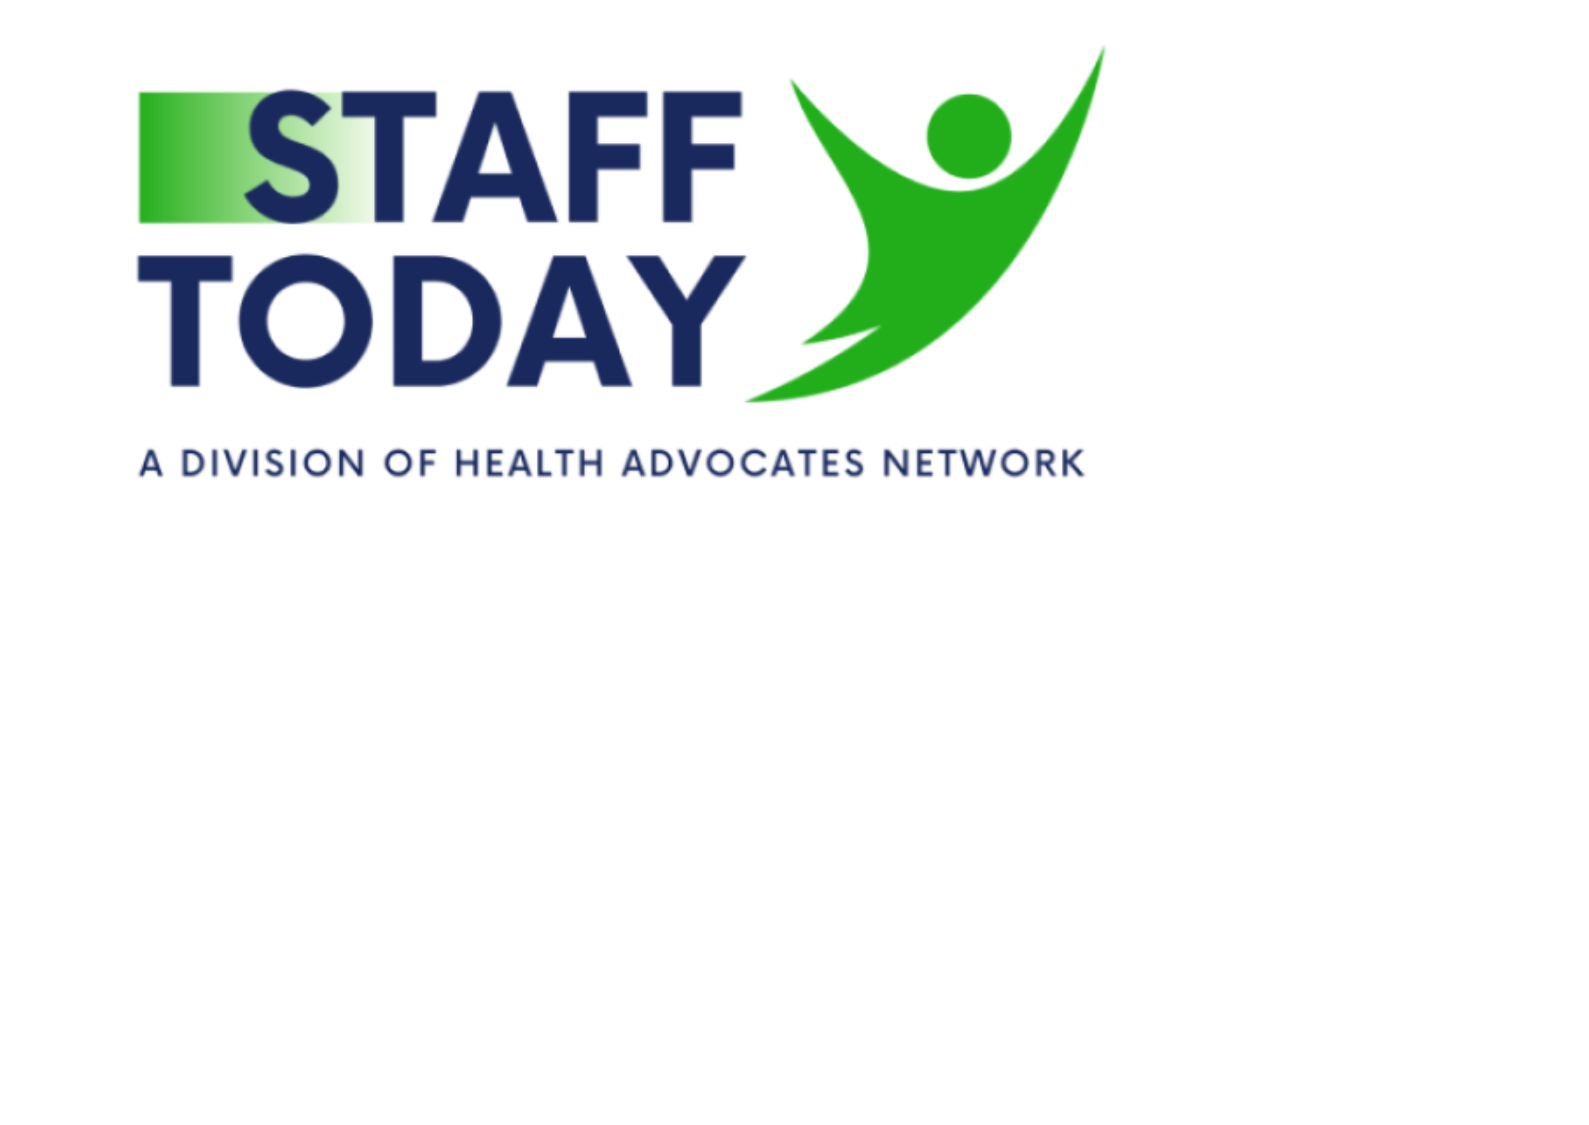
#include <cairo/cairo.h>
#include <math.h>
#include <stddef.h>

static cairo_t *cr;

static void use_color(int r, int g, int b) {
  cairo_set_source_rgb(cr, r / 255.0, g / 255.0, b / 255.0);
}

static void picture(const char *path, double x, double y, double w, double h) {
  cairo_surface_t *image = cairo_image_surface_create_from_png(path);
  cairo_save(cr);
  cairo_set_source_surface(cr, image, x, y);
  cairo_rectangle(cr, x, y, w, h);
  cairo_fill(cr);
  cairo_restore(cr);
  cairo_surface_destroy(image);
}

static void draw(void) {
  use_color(255, 255, 255);
  cairo_paint(cr);
  picture("img_01.png", 135, 44, 972, 435);
}

int main(void) {
  cairo_surface_t *surface = cairo_image_surface_create(CAIRO_FORMAT_RGB24, 1589, 1125);
  cr = cairo_create(surface);
  cairo_font_options_t *options = cairo_font_options_create();
  cairo_font_options_set_hint_metrics(options, CAIRO_HINT_METRICS_OFF);
  cairo_font_options_set_hint_style(options, CAIRO_HINT_STYLE_NONE);
  cairo_set_font_options(cr, options);
  cairo_set_miter_limit(cr, 4);
  draw();
  cairo_surface_write_to_png(surface, "out.png");
  cairo_font_options_destroy(options);
  cairo_destroy(cr);
  cairo_surface_destroy(surface);
  return 0;
}
